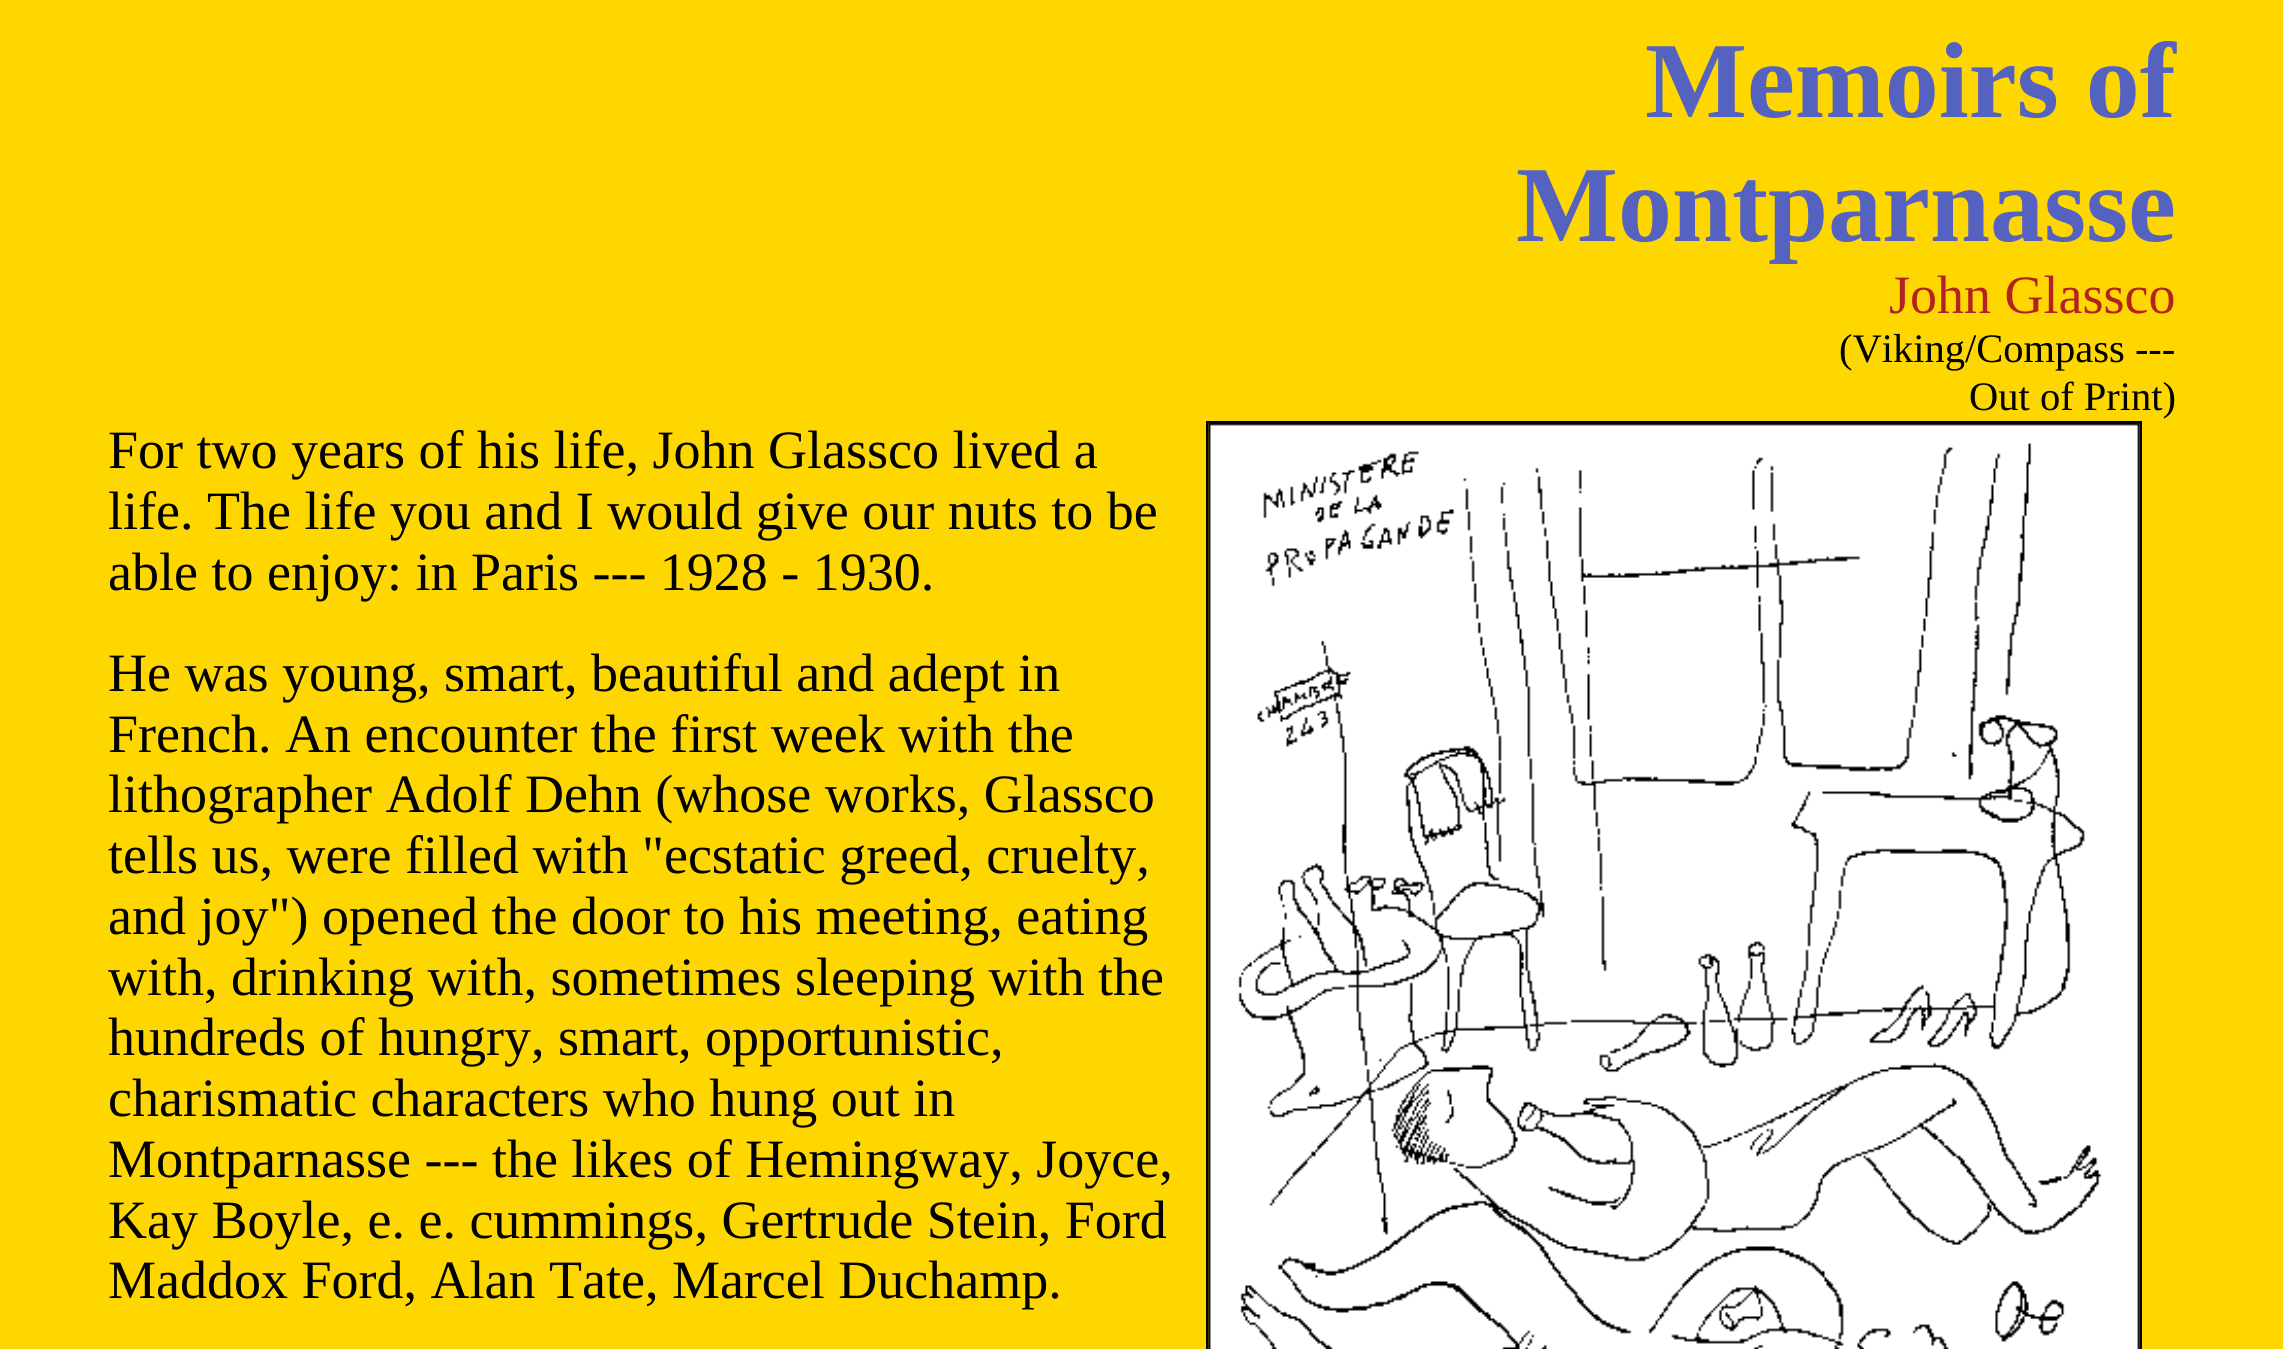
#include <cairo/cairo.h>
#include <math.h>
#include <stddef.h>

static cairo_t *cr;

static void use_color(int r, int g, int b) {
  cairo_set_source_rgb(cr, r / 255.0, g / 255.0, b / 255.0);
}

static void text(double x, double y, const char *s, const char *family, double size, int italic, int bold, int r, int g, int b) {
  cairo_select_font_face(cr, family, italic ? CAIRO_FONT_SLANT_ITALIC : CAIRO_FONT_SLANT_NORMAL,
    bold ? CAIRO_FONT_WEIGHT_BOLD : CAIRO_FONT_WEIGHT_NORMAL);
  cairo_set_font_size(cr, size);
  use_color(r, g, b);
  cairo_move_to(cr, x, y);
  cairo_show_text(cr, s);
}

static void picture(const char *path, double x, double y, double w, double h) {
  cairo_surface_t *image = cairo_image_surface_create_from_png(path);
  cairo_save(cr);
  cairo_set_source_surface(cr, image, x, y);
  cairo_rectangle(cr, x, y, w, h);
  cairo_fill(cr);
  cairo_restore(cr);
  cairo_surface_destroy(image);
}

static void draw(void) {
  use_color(255, 215, 0);
  cairo_paint(cr);
  cairo_rectangle(cr, 1207, 422, 934, 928);
  use_color(0, 0, 0);
  cairo_stroke(cr);
  picture("img_01.png", 1208, 423, 932, 926);
  text(1645, 117, "Memoirs of", "Liberation Serif", 108, 0, 1, 85, 98, 191);
  text(1516, 241, "Montparnasse", "Liberation Serif", 108, 0, 1, 85, 98, 191);
  text(1889, 313, "John Glassco", "Liberation Serif", 54, 0, 0, 178, 34, 34);
  text(1839, 362, "(Viking/Compass ---", "Liberation Serif", 40.5, 0, 0, 0, 0, 0);
  text(1969, 410, "Out of Print)", "Liberation Serif", 40.5, 0, 0, 0, 0, 0);
  text(108, 468, "For two years of his life, John Glassco lived a", "Liberation Serif", 54, 0, 0, 0, 0, 0);
  text(108, 529, "life. The life you and I would give our nuts to be", "Liberation Serif", 54, 0, 0, 0, 0, 0);
  text(108, 590, "able to enjoy: in Paris --- 1928 - 1930.", "Liberation Serif", 54, 0, 0, 0, 0, 0);
  text(108, 691, "He was young, smart, beautiful and adept in", "Liberation Serif", 54, 0, 0, 0, 0, 0);
  text(108, 752, "French. An encounter the first week with the", "Liberation Serif", 54, 0, 0, 0, 0, 0);
  text(108, 812, "lithographer Adolf Dehn (whose works, Glassco", "Liberation Serif", 54, 0, 0, 0, 0, 0);
  text(108, 873, "tells us, were filled with \"ecstatic greed, cruelty,", "Liberation Serif", 54, 0, 0, 0, 0, 0);
  text(108, 934, "and joy\") opened the door to his meeting, eating", "Liberation Serif", 54, 0, 0, 0, 0, 0);
  text(108, 995, "with, drinking with, sometimes sleeping with the", "Liberation Serif", 54, 0, 0, 0, 0, 0);
  text(108, 1055, "hundreds of hungry, smart, opportunistic,", "Liberation Serif", 54, 0, 0, 0, 0, 0);
  text(108, 1116, "charismatic characters who hung out in", "Liberation Serif", 54, 0, 0, 0, 0, 0);
  text(108, 1177, "Montparnasse --- the likes of Hemingway, Joyce,", "Liberation Serif", 54, 0, 0, 0, 0, 0);
  text(108, 1238, "Kay Boyle, e. e. cummings, Gertrude Stein, Ford", "Liberation Serif", 54, 0, 0, 0, 0, 0);
  text(108, 1298, "Maddox Ford, Alan Tate, Marcel Duchamp.", "Liberation Serif", 54, 0, 0, 0, 0, 0);
}

int main(void) {
  cairo_surface_t *surface = cairo_image_surface_create(CAIRO_FORMAT_RGB24, 2283, 1349);
  cr = cairo_create(surface);
  cairo_font_options_t *options = cairo_font_options_create();
  cairo_font_options_set_hint_metrics(options, CAIRO_HINT_METRICS_OFF);
  cairo_font_options_set_hint_style(options, CAIRO_HINT_STYLE_NONE);
  cairo_set_font_options(cr, options);
  cairo_set_miter_limit(cr, 4);
  draw();
  cairo_surface_write_to_png(surface, "out.png");
  cairo_font_options_destroy(options);
  cairo_destroy(cr);
  cairo_surface_destroy(surface);
  return 0;
}
